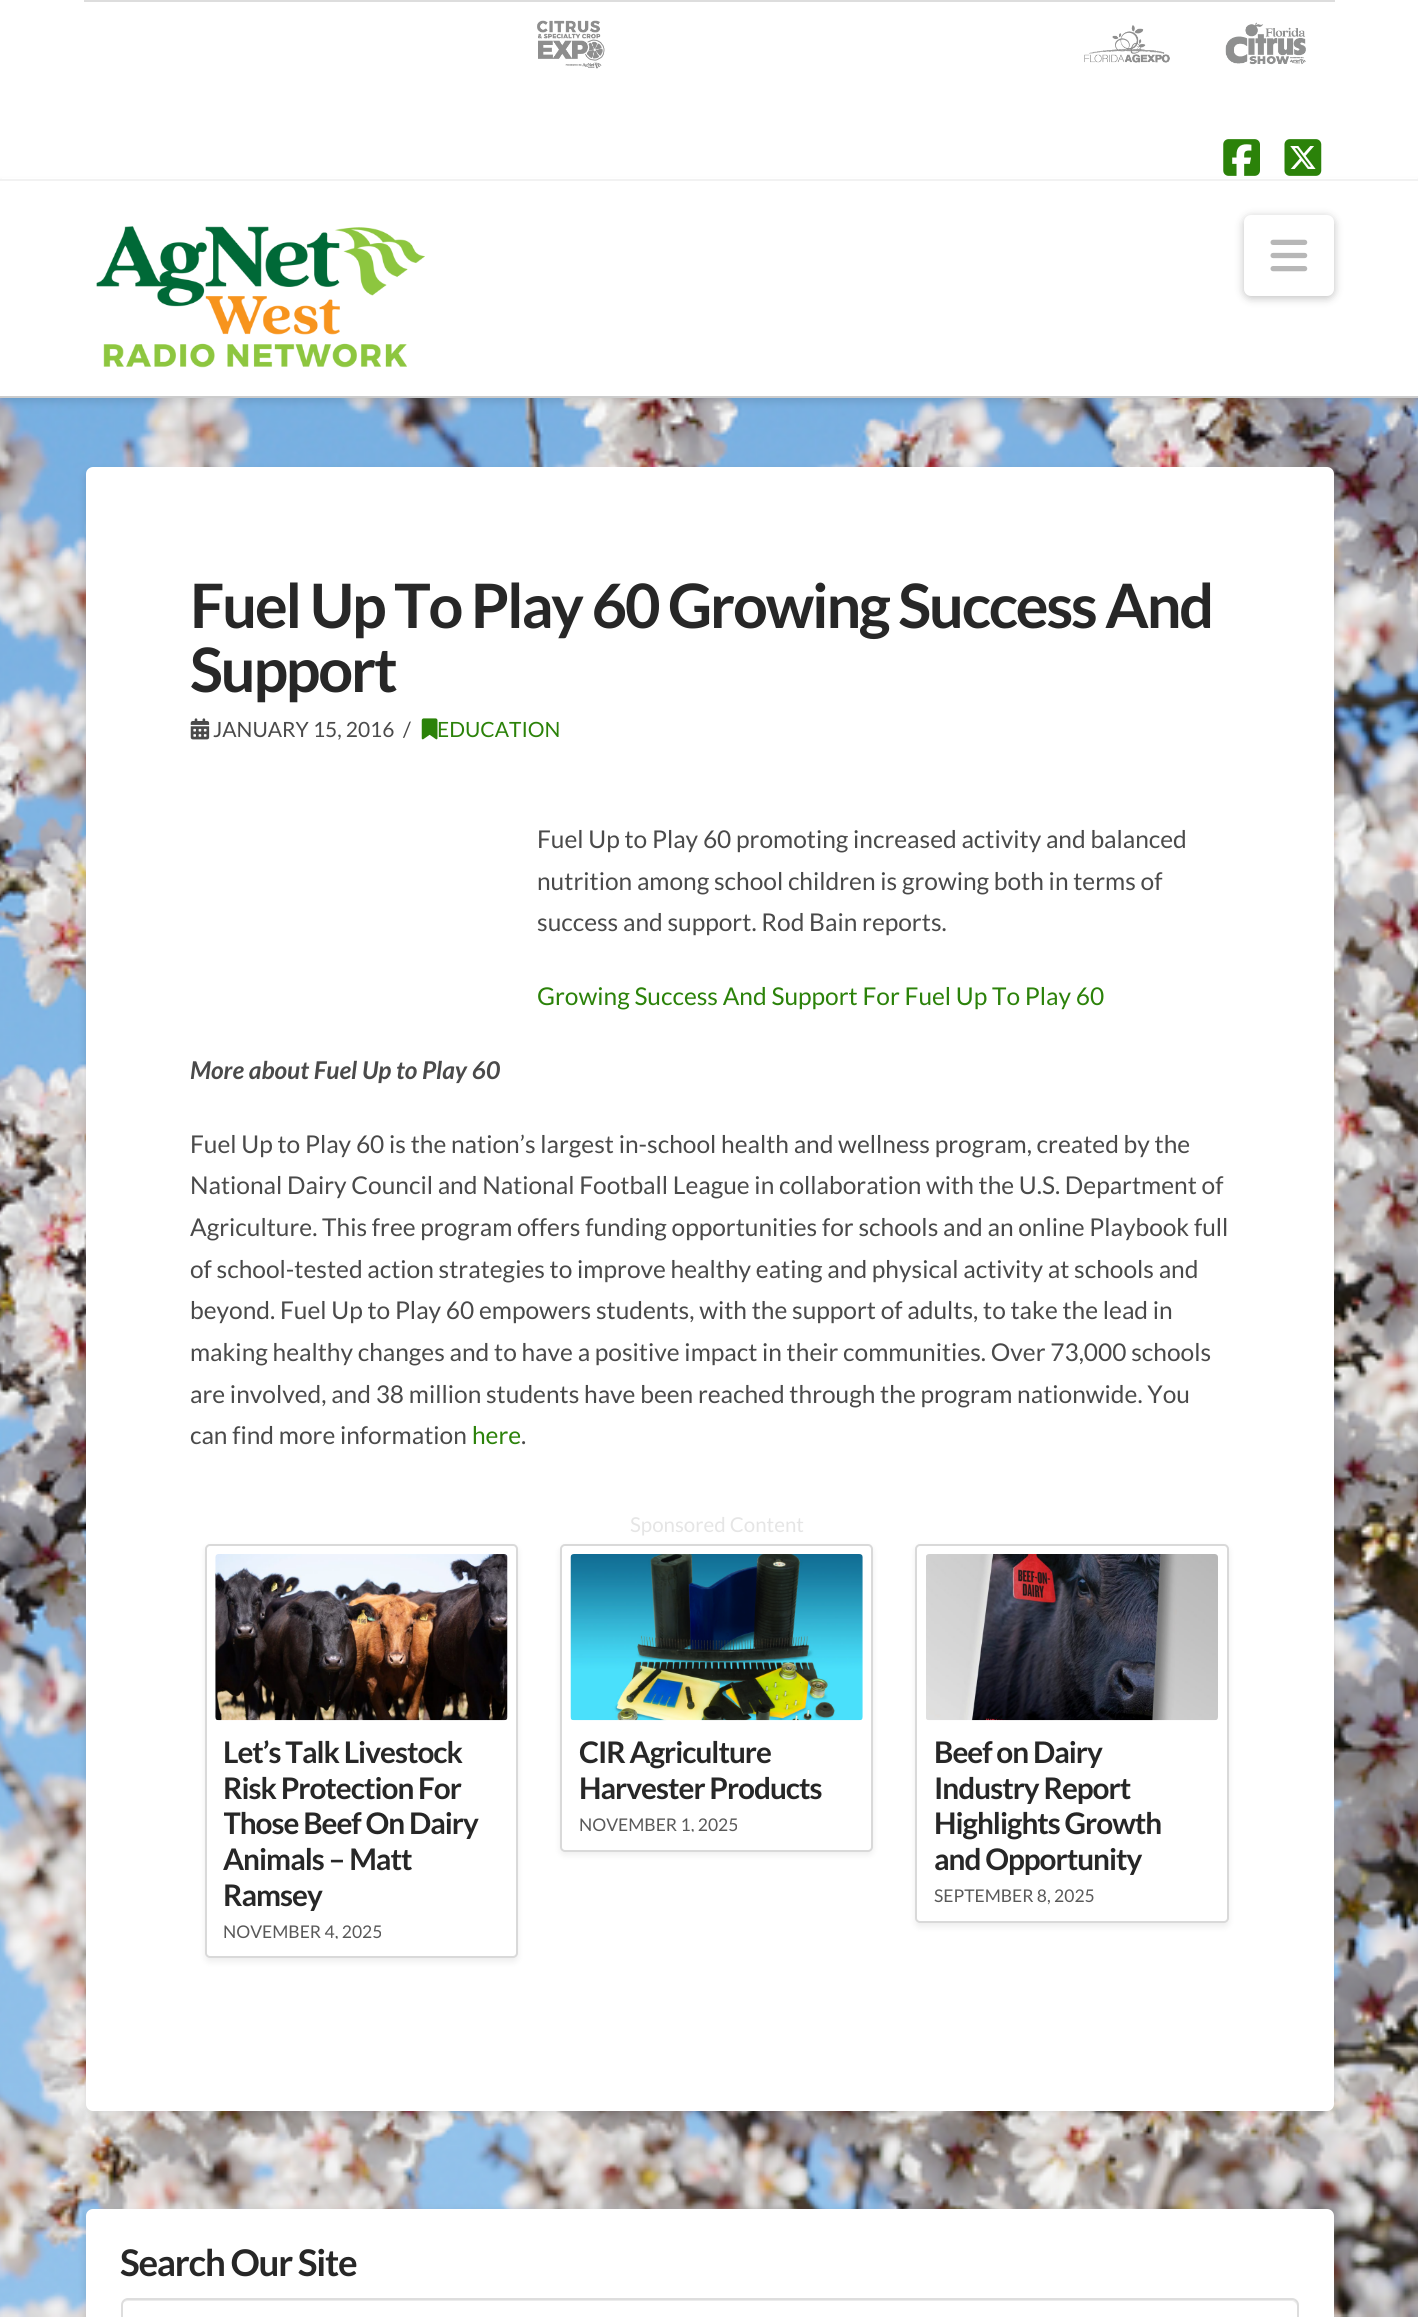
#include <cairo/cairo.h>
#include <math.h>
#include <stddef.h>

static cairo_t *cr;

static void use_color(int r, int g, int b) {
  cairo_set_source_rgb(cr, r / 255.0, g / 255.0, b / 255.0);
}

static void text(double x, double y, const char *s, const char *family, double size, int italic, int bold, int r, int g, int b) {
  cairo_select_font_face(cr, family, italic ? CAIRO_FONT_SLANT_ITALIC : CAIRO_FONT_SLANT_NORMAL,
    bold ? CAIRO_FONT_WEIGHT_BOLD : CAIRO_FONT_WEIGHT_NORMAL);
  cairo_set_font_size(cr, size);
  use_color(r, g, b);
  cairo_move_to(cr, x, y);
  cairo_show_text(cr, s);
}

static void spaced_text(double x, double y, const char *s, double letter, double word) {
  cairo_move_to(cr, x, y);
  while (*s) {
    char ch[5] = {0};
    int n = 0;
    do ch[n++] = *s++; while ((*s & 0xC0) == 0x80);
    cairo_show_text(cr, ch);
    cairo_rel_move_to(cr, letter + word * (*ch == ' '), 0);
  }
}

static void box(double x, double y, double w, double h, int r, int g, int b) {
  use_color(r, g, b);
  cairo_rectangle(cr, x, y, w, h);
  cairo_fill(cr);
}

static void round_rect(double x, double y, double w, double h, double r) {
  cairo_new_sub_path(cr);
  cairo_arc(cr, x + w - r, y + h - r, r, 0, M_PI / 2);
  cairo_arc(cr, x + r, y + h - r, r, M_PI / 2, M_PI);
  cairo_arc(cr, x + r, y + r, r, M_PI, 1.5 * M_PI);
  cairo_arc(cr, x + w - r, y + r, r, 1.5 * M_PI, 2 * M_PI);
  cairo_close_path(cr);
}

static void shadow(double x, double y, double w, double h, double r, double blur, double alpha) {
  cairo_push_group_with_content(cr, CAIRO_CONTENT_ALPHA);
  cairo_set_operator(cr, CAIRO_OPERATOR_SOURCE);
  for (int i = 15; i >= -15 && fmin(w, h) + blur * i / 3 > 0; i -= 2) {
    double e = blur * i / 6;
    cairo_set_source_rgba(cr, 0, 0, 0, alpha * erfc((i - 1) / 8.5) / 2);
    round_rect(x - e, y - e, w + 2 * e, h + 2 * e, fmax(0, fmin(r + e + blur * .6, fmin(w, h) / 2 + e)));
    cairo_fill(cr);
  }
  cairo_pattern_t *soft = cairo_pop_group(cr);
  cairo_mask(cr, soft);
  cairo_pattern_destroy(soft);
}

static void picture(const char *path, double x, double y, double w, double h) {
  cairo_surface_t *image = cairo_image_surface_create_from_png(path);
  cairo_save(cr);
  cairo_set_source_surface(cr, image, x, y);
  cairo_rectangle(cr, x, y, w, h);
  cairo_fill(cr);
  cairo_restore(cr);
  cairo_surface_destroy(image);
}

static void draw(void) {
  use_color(255, 255, 255);
  cairo_paint(cr);
  picture("img_01.png", 0, 398, 1418, 1919);
  use_color(0, 0, 0);
  shadow(0, 184, 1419, 217, 0, 4.5, 0.13);
  box(2, 178, 1415, 1, 255, 255, 255);
  box(0, 179, 1418, 2, 242, 242, 242);
  box(84, 0, 1251, 2, 221, 221, 221);
  picture("img_02.png", 1225, 22, 81, 43);
  picture("img_03.png", 537, 20, 68, 49);
  picture("img_04.png", 1084, 25, 86, 38);
  picture("img_05.png", 1223, 139, 37, 37);
  picture("img_06.png", 1284, 139, 38, 37);
  box(0, 181, 1418, 215, 255, 255, 255);
  box(0, 396, 1418, 2, 204, 204, 204);
  picture("img_07.png", 96, 226, 329, 142);
  use_color(0, 0, 0);
  shadow(1244, 217, 90, 81, 7, 4.5, 0.25);
  use_color(255, 255, 255);
  round_rect(1244, 215, 90, 81, 7);
  cairo_fill(cr);
  picture("img_08.png", 1270, 239, 38, 33);
  use_color(0, 0, 0);
  shadow(86, 471, 1248, 1643, 7, 4.5, 0.13);
  use_color(255, 255, 255);
  round_rect(86, 467, 1248, 1644, 7);
  cairo_fill(cr);
  picture("img_09.png", 190, 718, 20, 22);
  picture("img_10.png", 421, 718, 17, 22);
  use_color(0, 0, 0);
  shadow(205, 1547, 313, 415, 5, 3.5, 0.07);
  use_color(255, 255, 255);
  round_rect(206, 1545, 311, 412, 4);
  cairo_fill_preserve(cr);
  use_color(217, 217, 217);
  cairo_stroke(cr);
  picture("img_11.png", 215, 1554, 293, 167);
  use_color(0, 0, 0);
  shadow(560, 1547, 313, 308, 5, 3.5, 0.07);
  use_color(255, 255, 255);
  round_rect(560, 1544, 313, 308, 5);
  cairo_fill(cr);
  round_rect(561, 1545, 311, 306, 4);
  cairo_set_source_rgba(cr, 0, 0, 0, 0.15);
  cairo_stroke(cr);
  picture("img_12.png", 570, 1554, 293, 167);
  use_color(0, 0, 0);
  shadow(915, 1547, 314, 380, 5, 3.5, 0.07);
  use_color(255, 255, 255);
  round_rect(915, 1544, 314, 379, 5);
  cairo_fill(cr);
  round_rect(916, 1545, 312, 377, 4);
  cairo_set_source_rgba(cr, 0, 0, 0, 0.15);
  cairo_stroke(cr);
  picture("img_13.png", 926, 1554, 292, 167);
  use_color(0, 0, 0);
  shadow(86, 2212, 1248, 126, 7, 4.5, 0.13);
  use_color(255, 255, 255);
  round_rect(86, 2209, 1248, 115, 7);
  cairo_fill(cr);
  use_color(236, 236, 236);
  cairo_new_path(cr);
  cairo_move_to(cr, 128, 2301);
  cairo_line_to(cr, 1292, 2301);
  cairo_curve_to(cr, 1294, 2301, 1297, 2304, 1297, 2306);
  cairo_line_to(cr, 1297, 2305);
  cairo_curve_to(cr, 1297, 2302, 1295, 2300, 1292, 2300);
  cairo_line_to(cr, 128, 2300);
  cairo_curve_to(cr, 126, 2300, 124, 2301, 123, 2303);
  cairo_curve_to(cr, 124, 2302, 126, 2301, 128, 2301);
  cairo_close_path(cr);
  cairo_fill(cr);
  round_rect(122, 2299, 1176, 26, 6);
  use_color(221, 221, 221);
  cairo_stroke(cr);
  cairo_select_font_face(cr, "Lato", CAIRO_FONT_SLANT_NORMAL, CAIRO_FONT_WEIGHT_BOLD);
  cairo_set_font_size(cr, 61.25);
  use_color(39, 39, 39);
  spaced_text(190, 628, "Fuel Up To Play 60 Growing Success And", -2.15, 0);
  spaced_text(190, 692, "Support", -2.15, 0);
  text(213, 737, "JANUARY 15, 2016", "Lato", 21, 0, 0, 74, 74, 74);
  text(403, 737, "/", "Lato", 21, 0, 0, 74, 74, 74);
  text(437, 737, "EDUCATION", "Lato", 21, 0, 0, 43, 130, 9);
  text(537, 848, "Fuel Up to Play 60 promoting increased activity and balanced", "Lato", 24.5, 0, 0, 74, 74, 74);
  text(537, 890, "nutrition among school children is growing both in terms of", "Lato", 24.5, 0, 0, 74, 74, 74);
  text(537, 931, "success and support. Rod Bain reports.", "Lato", 24.5, 0, 0, 74, 74, 74);
  text(537, 1005, "Growing Success And Support For Fuel Up To Play 60", "Lato", 24.5, 0, 0, 43, 130, 9);
  text(190, 1079, "More about Fuel Up to Play 60", "Lato", 24.5, 1, 1, 74, 74, 74);
  text(190, 1153, "Fuel Up to Play 60 is the nation’s largest in-school health and wellness program, created by the", "Lato", 24.5, 0, 0, 74, 74, 74);
  text(190, 1194, "National Dairy Council and National Football League in collaboration with the U.S. Department of", "Lato", 24.5, 0, 0, 74, 74, 74);
  text(190, 1236, "Agriculture. This free program offers funding opportunities for schools and an online Playbook full", "Lato", 24.5, 0, 0, 74, 74, 74);
  text(190, 1278, "of school-tested action strategies to improve healthy eating and physical activity at schools and", "Lato", 24.5, 0, 0, 74, 74, 74);
  text(190, 1319, "beyond. Fuel Up to Play 60 empowers students, with the support of adults, to take the lead in", "Lato", 24.5, 0, 0, 74, 74, 74);
  text(190, 1361, "making healthy changes and to have a positive impact in their communities. Over 73,000 schools", "Lato", 24.5, 0, 0, 74, 74, 74);
  text(190, 1403, "are involved, and 38 million students have been reached through the program nationwide. You", "Lato", 24.5, 0, 0, 74, 74, 74);
  text(190, 1444, "can find more information", "Lato", 24.5, 0, 0, 74, 74, 74);
  text(472, 1444, "here", "Lato", 24.5, 0, 0, 43, 130, 9);
  text(521, 1444, ".", "Lato", 24.5, 0, 0, 74, 74, 74);
  text(630, 1532, "Sponsored Content", "Lato", 20.5, 0, 0, 229, 229, 229);
  cairo_select_font_face(cr, "Lato", CAIRO_FONT_SLANT_NORMAL, CAIRO_FONT_WEIGHT_BOLD);
  cairo_set_font_size(cr, 29.75);
  use_color(39, 39, 39);
  spaced_text(223, 1763, "Let’s Talk Livestock", -1, 0);
  spaced_text(223, 1799, "Risk Protection For", -1, 0);
  cairo_save(cr);
  cairo_rectangle(cr, 224, 1736, 275, 177);
  cairo_clip(cr);
  spaced_text(223, 1834, "Those Beef On Dairy", -1, 0);
  cairo_restore(cr);
  spaced_text(223, 1870, "Animals – Matt", -1, 0);
  spaced_text(223, 1906, "Ramsey", -1, 0);
  cairo_save(cr);
  cairo_rectangle(cr, 224, 1922, 275, 17);
  cairo_clip(cr);
  text(223, 1938, "NOVEMBER 4, 2025", "Lato", 17.5, 0, 0, 89, 89, 89);
  cairo_restore(cr);
  spaced_text(579, 1763, "CIR Agriculture", -1, 0);
  spaced_text(579, 1799, "Harvester Products", -1, 0);
  cairo_save(cr);
  cairo_rectangle(cr, 579, 1815, 275, 17);
  cairo_clip(cr);
  text(579, 1831, "NOVEMBER 1, 2025", "Lato", 17.5, 0, 0, 89, 89, 89);
  cairo_restore(cr);
  spaced_text(934, 1763, "Beef on Dairy", -1, 0);
  spaced_text(934, 1799, "Industry Report", -1, 0);
  spaced_text(934, 1834, "Highlights Growth", -1, 0);
  spaced_text(934, 1870, "and Opportunity", -1, 0);
  text(934, 1902, "SEPTEMBER 8, 2025", "Lato", 17.5, 0, 0, 89, 89, 89);
  cairo_select_font_face(cr, "Lato", CAIRO_FONT_SLANT_NORMAL, CAIRO_FONT_WEIGHT_BOLD);
  cairo_set_font_size(cr, 36.75);
  use_color(39, 39, 39);
  spaced_text(120, 2276, "Search Our Site", -1.25, 0);
}

int main(void) {
  cairo_surface_t *surface = cairo_image_surface_create(CAIRO_FORMAT_RGB24, 1418, 2317);
  cr = cairo_create(surface);
  cairo_font_options_t *options = cairo_font_options_create();
  cairo_font_options_set_hint_metrics(options, CAIRO_HINT_METRICS_OFF);
  cairo_font_options_set_hint_style(options, CAIRO_HINT_STYLE_NONE);
  cairo_set_font_options(cr, options);
  cairo_set_miter_limit(cr, 4);
  draw();
  cairo_surface_write_to_png(surface, "out.png");
  cairo_font_options_destroy(options);
  cairo_destroy(cr);
  cairo_surface_destroy(surface);
  return 0;
}
